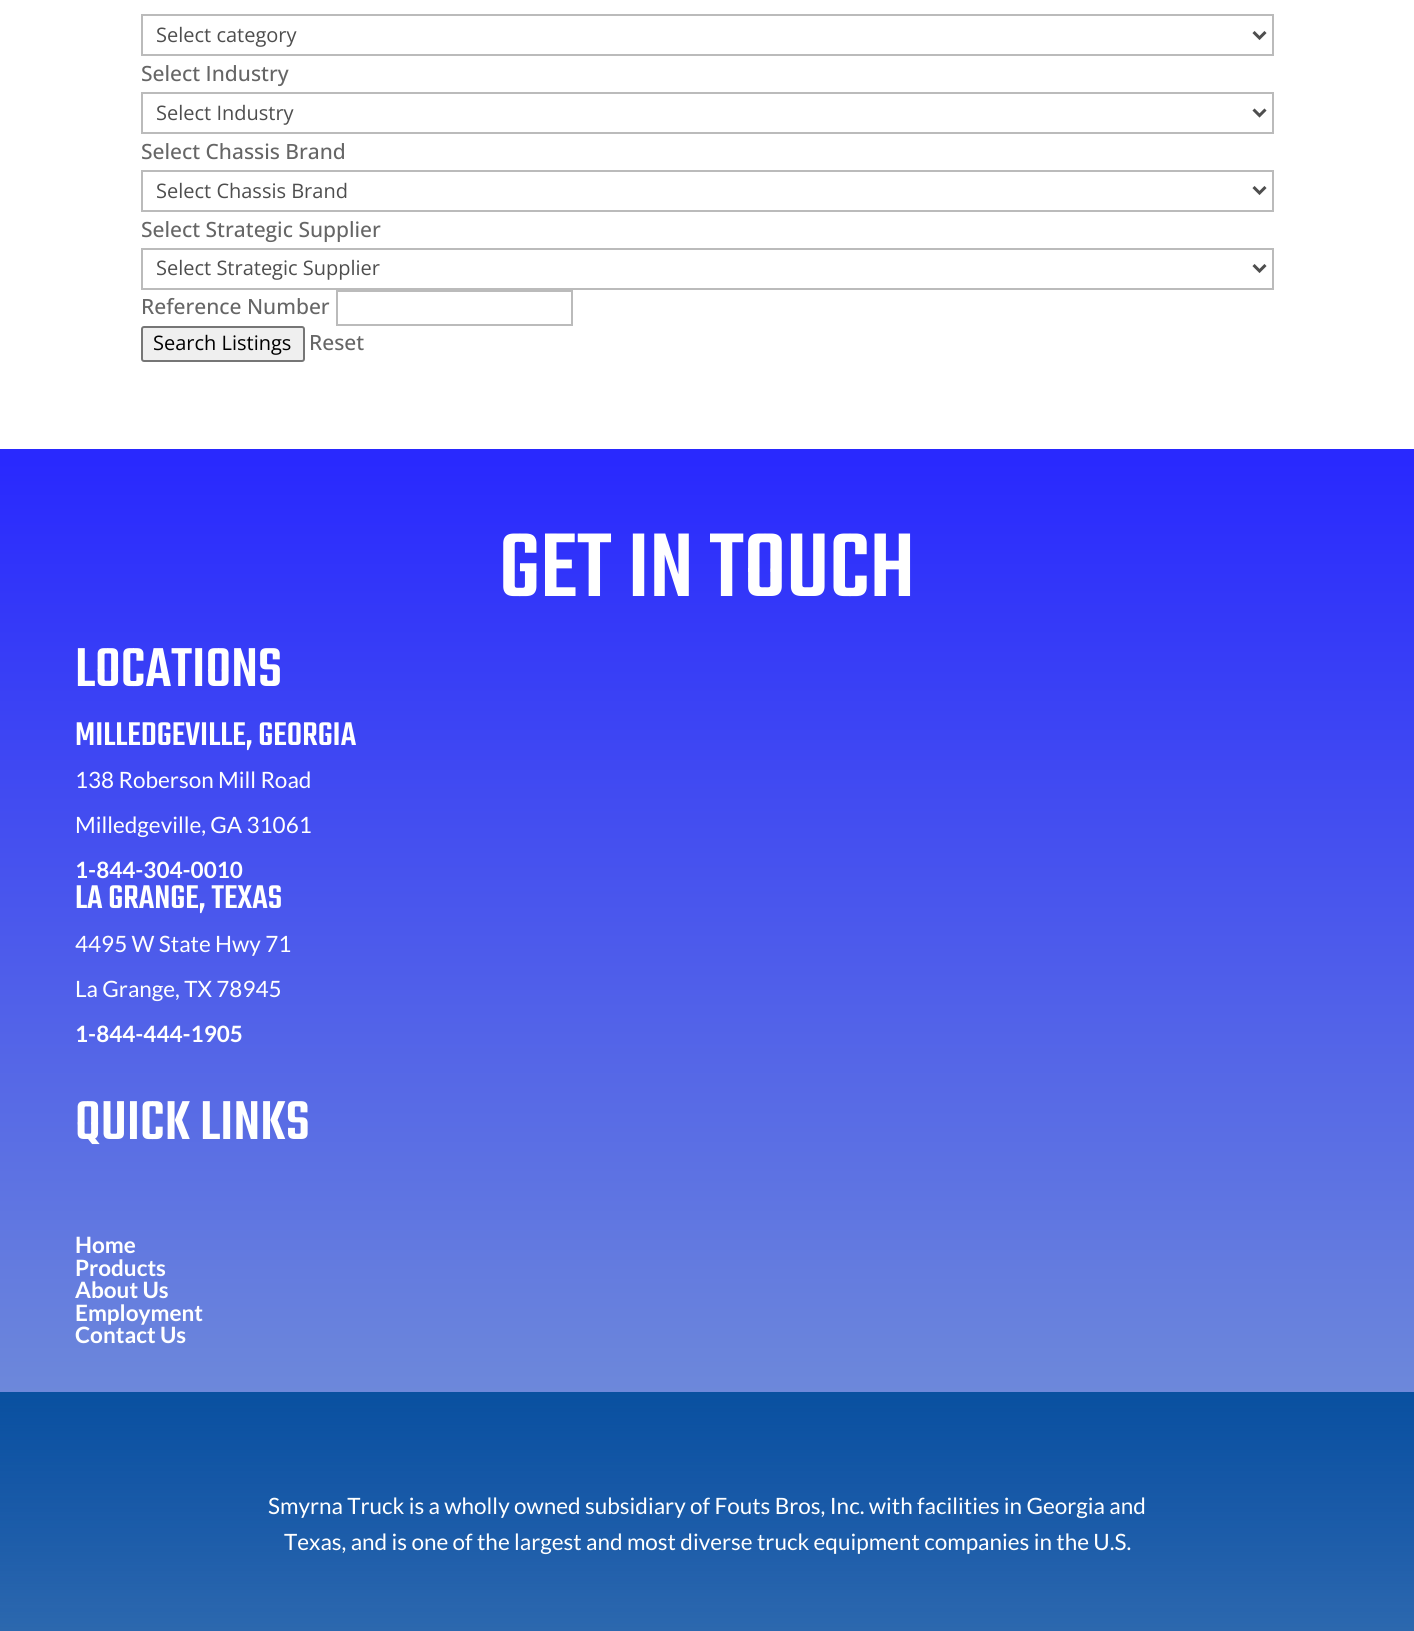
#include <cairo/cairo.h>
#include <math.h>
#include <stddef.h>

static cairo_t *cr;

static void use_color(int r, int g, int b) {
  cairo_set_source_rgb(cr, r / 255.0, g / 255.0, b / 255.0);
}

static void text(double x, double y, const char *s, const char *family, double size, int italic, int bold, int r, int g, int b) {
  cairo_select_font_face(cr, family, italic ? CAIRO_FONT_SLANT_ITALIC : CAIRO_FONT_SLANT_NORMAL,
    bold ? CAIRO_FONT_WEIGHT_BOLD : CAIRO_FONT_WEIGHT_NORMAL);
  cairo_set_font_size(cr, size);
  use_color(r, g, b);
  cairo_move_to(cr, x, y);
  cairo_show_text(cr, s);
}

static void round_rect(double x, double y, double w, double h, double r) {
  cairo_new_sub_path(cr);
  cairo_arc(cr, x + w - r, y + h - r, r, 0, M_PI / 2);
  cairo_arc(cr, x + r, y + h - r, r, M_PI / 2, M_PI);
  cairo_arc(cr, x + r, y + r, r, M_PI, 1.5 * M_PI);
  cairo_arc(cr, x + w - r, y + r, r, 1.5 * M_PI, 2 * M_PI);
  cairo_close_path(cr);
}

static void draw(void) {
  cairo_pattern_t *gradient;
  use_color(255, 255, 255);
  cairo_paint(cr);
  cairo_rectangle(cr, 142, 15, 1131, 40);
  use_color(187, 187, 187);
  cairo_stroke(cr);
  cairo_new_path(cr);
  cairo_move_to(cr, 1253.5, 32);
  cairo_line_to(cr, 1259.5, 38);
  cairo_line_to(cr, 1265.5, 32);
  use_color(78, 78, 78);
  cairo_set_line_width(cr, 3);
  cairo_stroke(cr);
  cairo_rectangle(cr, 142, 93, 1131, 40);
  use_color(187, 187, 187);
  cairo_set_line_width(cr, 2);
  cairo_stroke(cr);
  cairo_new_path(cr);
  cairo_move_to(cr, 1253.5, 109.5);
  cairo_line_to(cr, 1259.5, 115.5);
  cairo_line_to(cr, 1265.5, 109.5);
  use_color(78, 78, 78);
  cairo_set_line_width(cr, 3);
  cairo_stroke(cr);
  cairo_rectangle(cr, 142, 171, 1131, 40);
  use_color(187, 187, 187);
  cairo_set_line_width(cr, 2);
  cairo_stroke(cr);
  cairo_new_path(cr);
  cairo_move_to(cr, 1253.5, 187);
  cairo_line_to(cr, 1259.5, 193);
  cairo_line_to(cr, 1265.5, 187);
  use_color(78, 78, 78);
  cairo_set_line_width(cr, 3);
  cairo_stroke(cr);
  cairo_rectangle(cr, 142, 249, 1131, 40);
  use_color(187, 187, 187);
  cairo_set_line_width(cr, 2);
  cairo_stroke(cr);
  cairo_new_path(cr);
  cairo_move_to(cr, 1253.5, 265);
  cairo_line_to(cr, 1259.5, 271);
  cairo_line_to(cr, 1265.5, 265);
  use_color(78, 78, 78);
  cairo_set_line_width(cr, 3);
  cairo_stroke(cr);
  cairo_rectangle(cr, 337, 291, 235, 34);
  use_color(187, 187, 187);
  cairo_set_line_width(cr, 2);
  cairo_stroke(cr);
  use_color(239, 239, 239);
  round_rect(142, 327, 162, 34, 2);
  cairo_fill_preserve(cr);
  use_color(118, 118, 118);
  cairo_stroke(cr);
  gradient = cairo_pattern_create_linear(707, 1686, 707, 449);
  cairo_pattern_add_color_stop_rgba(gradient, 0, 0.51, 0.651, 0.812, 1);
  cairo_pattern_add_color_stop_rgba(gradient, 0.99, 0.161, 0.161, 0.996, 1);
  cairo_set_source(cr, gradient);
  cairo_pattern_destroy(gradient);
  cairo_rectangle(cr, 0, 449, 1414, 1182);
  cairo_fill(cr);
  gradient = cairo_pattern_create_linear(707, 1392, 707, 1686);
  cairo_pattern_add_color_stop_rgba(gradient, 0, 0.035, 0.314, 0.627, 1);
  cairo_pattern_add_color_stop_rgba(gradient, 1, 0.035, 0.314, 0.627, 0.63);
  cairo_set_source(cr, gradient);
  cairo_pattern_destroy(gradient);
  cairo_rectangle(cr, 0, 1392, 1414, 239);
  cairo_fill(cr);
  text(156, 42, "Select category", "Open Sans", 20, 0, 0, 78, 78, 78);
  text(141, 81, "Select Industry", "Open Sans Medium", 21, 0, 0, 102, 102, 102);
  text(156, 120, "Select Industry", "Open Sans", 20, 0, 0, 78, 78, 78);
  text(141, 159, "Select Chassis Brand", "Open Sans Medium", 21, 0, 0, 102, 102, 102);
  text(156, 198, "Select Chassis Brand", "Open Sans", 20, 0, 0, 78, 78, 78);
  text(141, 237, "Select Strategic Supplier", "Open Sans Medium", 21, 0, 0, 102, 102, 102);
  text(156, 275, "Select Strategic Supplier", "Open Sans", 20, 0, 0, 78, 78, 78);
  text(141, 314, "Reference Number", "Open Sans Medium", 21, 0, 0, 102, 102, 102);
  text(153, 350, "Search Listings", "Open Sans", 20, 0, 0, 0, 0, 0);
  text(309, 350, "Reset", "Open Sans Medium", 21, 0, 0, 102, 102, 102);
  text(499, 596, "GET IN TOUCH", "Teko Medium", 99, 0, 0, 255, 255, 255);
  text(75, 686, "LOCATIONS", "Teko Medium", 60, 0, 0, 255, 255, 255);
  text(75, 745, "MILLEDGEVILLE, GEORGIA", "Teko Medium", 36, 0, 0, 255, 255, 255);
  text(75, 788, "138 Roberson Mill Road", "Lato", 22.5, 0, 0, 255, 255, 255);
  text(75, 833, "Milledgeville, GA 31061", "Lato", 22.5, 0, 0, 255, 255, 255);
  text(75, 878, "1-844-304-0010", "Lato", 22.5, 0, 1, 255, 255, 255);
  text(75, 908, "LA GRANGE, TEXAS", "Teko Medium", 36, 0, 0, 255, 255, 255);
  text(75, 952, "4495 W State Hwy 71", "Lato", 22.5, 0, 0, 255, 255, 255);
  text(75, 997, "La Grange, TX 78945", "Lato", 22.5, 0, 0, 255, 255, 255);
  text(75, 1042, "1-844-444-1905", "Lato", 22.5, 0, 1, 255, 255, 255);
  text(75, 1139, "QUICK LINKS", "Teko Medium", 60, 0, 0, 255, 255, 255);
  text(75, 1253, "Home", "Lato", 22.5, 0, 1, 255, 255, 255);
  text(75, 1276, "Products", "Lato", 22.5, 0, 1, 255, 255, 255);
  text(75, 1298, "About Us", "Lato", 22.5, 0, 1, 255, 255, 255);
  text(75, 1321, "Employment", "Lato", 22.5, 0, 1, 255, 255, 255);
  text(75, 1343, "Contact Us", "Lato", 22.5, 0, 1, 255, 255, 255);
  text(268, 1514, "Smyrna Truck is a wholly owned subsidiary of Fouts Bros, Inc. with facilities in Georgia and", "Lato", 22.5, 0, 0, 255, 255, 255);
  text(284, 1550, "Texas, and is one of the largest and most diverse truck equipment companies in the U.S.", "Lato", 22.5, 0, 0, 255, 255, 255);
}

int main(void) {
  cairo_surface_t *surface = cairo_image_surface_create(CAIRO_FORMAT_RGB24, 1414, 1631);
  cr = cairo_create(surface);
  cairo_font_options_t *options = cairo_font_options_create();
  cairo_font_options_set_hint_metrics(options, CAIRO_HINT_METRICS_OFF);
  cairo_font_options_set_hint_style(options, CAIRO_HINT_STYLE_NONE);
  cairo_set_font_options(cr, options);
  cairo_set_miter_limit(cr, 4);
  draw();
  cairo_surface_write_to_png(surface, "out.png");
  cairo_font_options_destroy(options);
  cairo_destroy(cr);
  cairo_surface_destroy(surface);
  return 0;
}
